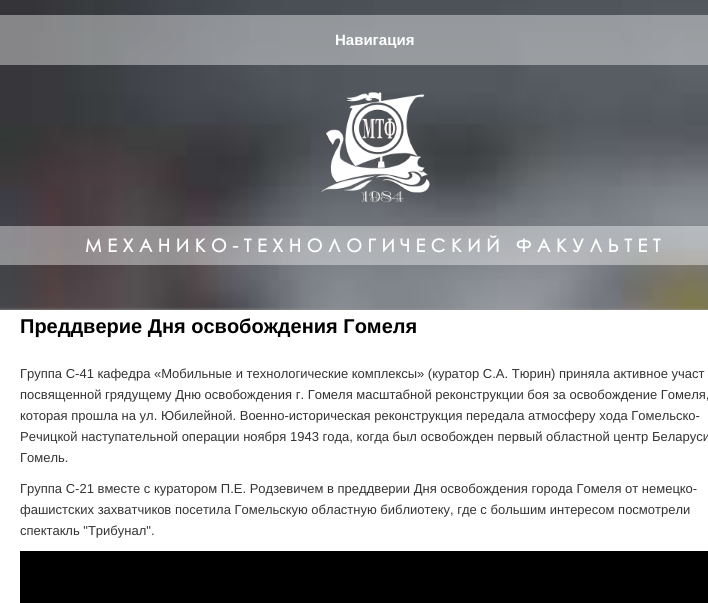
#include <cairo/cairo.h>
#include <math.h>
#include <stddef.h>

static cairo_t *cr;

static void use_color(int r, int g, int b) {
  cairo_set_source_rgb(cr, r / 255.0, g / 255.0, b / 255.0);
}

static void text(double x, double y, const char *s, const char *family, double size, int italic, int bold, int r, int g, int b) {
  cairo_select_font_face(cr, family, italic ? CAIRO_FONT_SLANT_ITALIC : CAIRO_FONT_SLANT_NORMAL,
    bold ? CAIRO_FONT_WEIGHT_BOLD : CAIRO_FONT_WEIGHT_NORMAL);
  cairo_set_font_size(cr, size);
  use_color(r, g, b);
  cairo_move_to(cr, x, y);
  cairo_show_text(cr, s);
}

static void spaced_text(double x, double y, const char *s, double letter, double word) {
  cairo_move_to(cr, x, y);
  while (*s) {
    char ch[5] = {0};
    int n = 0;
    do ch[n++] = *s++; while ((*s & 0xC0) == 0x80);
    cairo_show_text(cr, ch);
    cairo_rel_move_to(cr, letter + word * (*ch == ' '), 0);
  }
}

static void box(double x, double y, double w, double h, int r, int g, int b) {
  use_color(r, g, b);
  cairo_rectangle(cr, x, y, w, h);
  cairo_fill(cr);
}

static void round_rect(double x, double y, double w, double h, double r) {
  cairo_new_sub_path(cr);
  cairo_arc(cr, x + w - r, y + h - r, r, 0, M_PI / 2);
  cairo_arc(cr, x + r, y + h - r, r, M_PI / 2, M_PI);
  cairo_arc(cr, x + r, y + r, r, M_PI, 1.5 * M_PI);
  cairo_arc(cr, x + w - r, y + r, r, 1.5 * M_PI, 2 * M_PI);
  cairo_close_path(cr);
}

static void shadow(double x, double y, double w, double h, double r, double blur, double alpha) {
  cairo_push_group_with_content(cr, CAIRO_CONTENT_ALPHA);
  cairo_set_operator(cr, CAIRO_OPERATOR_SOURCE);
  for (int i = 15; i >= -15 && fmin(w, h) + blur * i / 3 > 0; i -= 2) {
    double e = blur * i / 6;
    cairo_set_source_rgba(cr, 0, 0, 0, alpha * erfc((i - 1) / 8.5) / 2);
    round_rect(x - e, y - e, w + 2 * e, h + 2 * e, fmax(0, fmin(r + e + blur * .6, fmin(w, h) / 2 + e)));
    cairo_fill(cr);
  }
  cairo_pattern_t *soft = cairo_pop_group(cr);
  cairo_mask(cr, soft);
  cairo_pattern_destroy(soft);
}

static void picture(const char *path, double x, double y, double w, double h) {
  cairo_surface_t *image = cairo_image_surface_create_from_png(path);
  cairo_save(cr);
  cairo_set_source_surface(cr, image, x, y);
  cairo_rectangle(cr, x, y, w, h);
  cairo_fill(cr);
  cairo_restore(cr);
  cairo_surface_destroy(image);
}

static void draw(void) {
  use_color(255, 255, 255);
  cairo_paint(cr);
  picture("img_01.png", 0, 0, 708, 310);
  cairo_set_source_rgba(cr, 1, 1, 1, 0.4);
  cairo_rectangle(cr, 0, 15, 708, 50);
  cairo_fill(cr);
  picture("img_02.png", 320, 92, 110, 111);
  cairo_rectangle(cr, 0, 226, 708, 39);
  cairo_fill(cr);
  use_color(153, 153, 153);
  shadow(0, 310, 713, 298, 0, 1.5, 1);
  box(0, 310, 708, 293, 255, 255, 255);
  box(20, 551, 688, 52, 0, 0, 0);
  text(335, 45, "Навигация", "Liberation Sans", 15, 0, 1, 255, 255, 255);
  cairo_select_font_face(cr, "Century Gothic", CAIRO_FONT_SLANT_NORMAL, CAIRO_FONT_WEIGHT_BOLD);
  cairo_set_font_size(cr, 18);
  spaced_text(85, 252, "МЕХАНИКО-ТЕХНОЛОГИЧЕСКИЙ ФАКУЛЬТЕТ", 5.6, 0);
  text(20, 333, "Преддверие Дня освобождения Гомеля", "Liberation Sans", 20, 0, 1, 0, 0, 0);
  text(20, 378, "Группа С-41 кафедра «Мобильные и технологические комплексы» (куратор С.А. Тюрин) приняла активное участ", "Liberation Sans", 13, 0, 0, 51, 51, 51);
  text(20, 399, "посвященной грядущему Дню освобождения г. Гомеля масштабной реконструкции боя за освобождение Гомеля,", "Liberation Sans", 13, 0, 0, 51, 51, 51);
  text(20, 420, "которая прошла на ул. Юбилейной. Военно-историческая реконструкция передала атмосферу хода Гомельско-", "Liberation Sans", 13, 0, 0, 51, 51, 51);
  text(20, 441, "Речицкой наступательной операции ноября 1943 года, когда был освобожден первый областной центр Беларуси", "Liberation Sans", 13, 0, 0, 51, 51, 51);
  text(20, 462, "Гомель.", "Liberation Sans", 13, 0, 0, 51, 51, 51);
  text(20, 493, "Группа С-21 вместе с куратором П.Е. Родзевичем в преддверии Дня освобождения города Гомеля от немецко-", "Liberation Sans", 13, 0, 0, 51, 51, 51);
  text(20, 514, "фашистских захватчиков посетила Гомельскую областную библиотеку, где с большим интересом посмотрели", "Liberation Sans", 13, 0, 0, 51, 51, 51);
  text(20, 535, "спектакль \"Трибунал\".", "Liberation Sans", 13, 0, 0, 51, 51, 51);
}

int main(void) {
  cairo_surface_t *surface = cairo_image_surface_create(CAIRO_FORMAT_RGB24, 708, 603);
  cr = cairo_create(surface);
  cairo_font_options_t *options = cairo_font_options_create();
  cairo_font_options_set_hint_metrics(options, CAIRO_HINT_METRICS_OFF);
  cairo_font_options_set_hint_style(options, CAIRO_HINT_STYLE_NONE);
  cairo_set_font_options(cr, options);
  cairo_set_miter_limit(cr, 4);
  draw();
  cairo_surface_write_to_png(surface, "out.png");
  cairo_font_options_destroy(options);
  cairo_destroy(cr);
  cairo_surface_destroy(surface);
  return 0;
}
